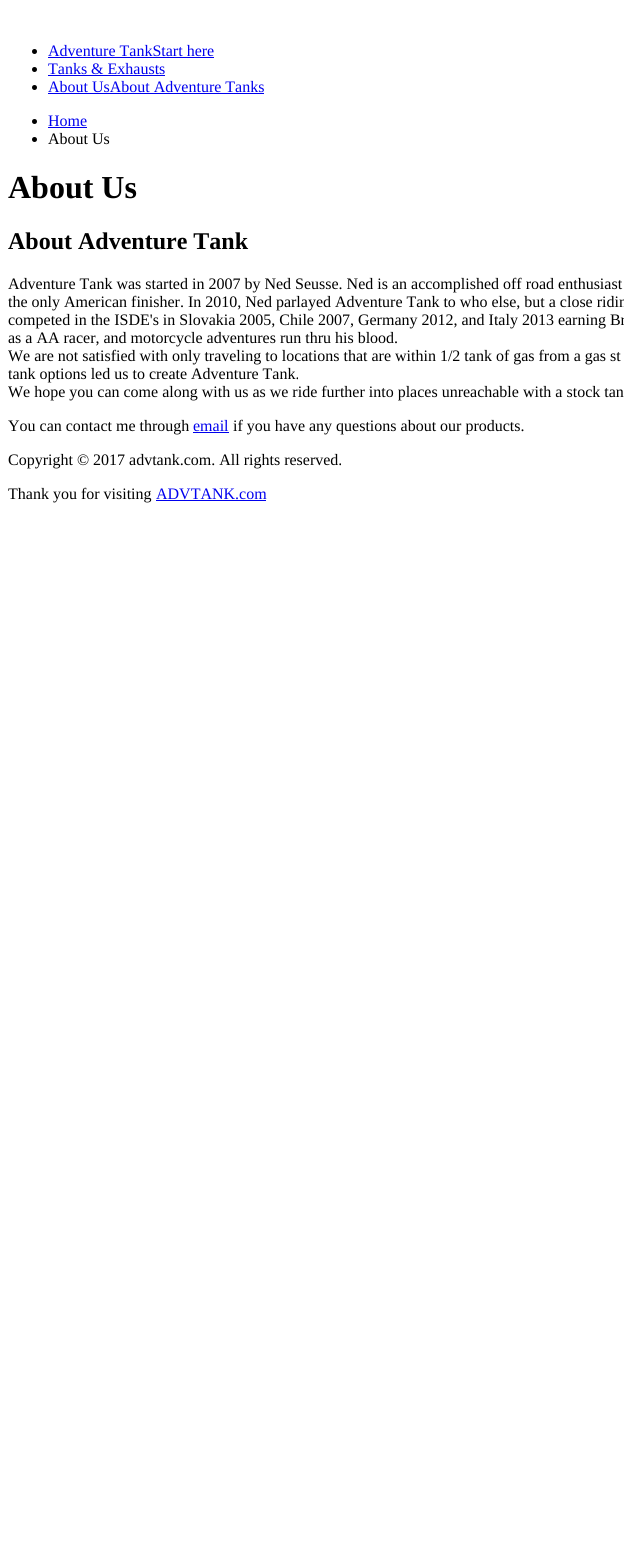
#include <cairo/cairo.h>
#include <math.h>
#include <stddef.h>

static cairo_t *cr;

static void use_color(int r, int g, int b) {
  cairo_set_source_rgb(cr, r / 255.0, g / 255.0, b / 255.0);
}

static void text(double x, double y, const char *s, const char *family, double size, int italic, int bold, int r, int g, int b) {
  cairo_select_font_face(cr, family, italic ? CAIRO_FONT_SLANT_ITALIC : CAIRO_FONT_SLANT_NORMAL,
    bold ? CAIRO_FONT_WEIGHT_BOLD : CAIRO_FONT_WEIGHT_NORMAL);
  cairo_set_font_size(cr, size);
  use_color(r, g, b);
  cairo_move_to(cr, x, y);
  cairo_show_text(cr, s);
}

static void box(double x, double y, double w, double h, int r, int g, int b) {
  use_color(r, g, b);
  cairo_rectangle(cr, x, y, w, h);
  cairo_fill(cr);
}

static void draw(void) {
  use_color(255, 255, 255);
  cairo_paint(cr);
  use_color(0, 0, 0);
  cairo_arc(cr, 34.5, 51.5, 2.5, 0, 2 * M_PI);
  cairo_fill(cr);
  box(48, 57, 166, 1, 0, 0, 238);
  use_color(0, 0, 0);
  cairo_arc(cr, 34.5, 69.5, 2.5, 0, 2 * M_PI);
  cairo_fill(cr);
  box(48, 75, 117, 1, 0, 0, 238);
  use_color(0, 0, 0);
  cairo_arc(cr, 34.5, 87.5, 2.5, 0, 2 * M_PI);
  cairo_fill(cr);
  box(48, 93, 216, 1, 0, 0, 238);
  use_color(0, 0, 0);
  cairo_arc(cr, 34.5, 121.5, 2.5, 0, 2 * M_PI);
  cairo_fill(cr);
  box(48, 127, 39, 1, 0, 0, 238);
  use_color(0, 0, 0);
  cairo_arc(cr, 34.5, 139.5, 2.5, 0, 2 * M_PI);
  cairo_fill(cr);
  box(193, 432, 36, 1, 0, 0, 238);
  box(156, 500, 110, 1, 0, 0, 238);
  text(48, 56, "Adventure TankStart here", "Liberation Serif", 16, 0, 0, 0, 0, 238);
  text(48, 74, "Tanks & Exhausts", "Liberation Serif", 16, 0, 0, 0, 0, 238);
  text(48, 92, "About UsAbout Adventure Tanks", "Liberation Serif", 16, 0, 0, 0, 0, 238);
  text(48, 126, "Home", "Liberation Serif", 16, 0, 0, 0, 0, 238);
  text(48, 144, "About Us", "Liberation Serif", 16, 0, 0, 0, 0, 0);
  text(8, 198, "About Us", "Liberation Serif", 32, 0, 1, 0, 0, 0);
  text(8, 249, "About Adventure Tank", "Liberation Serif", 24, 0, 1, 0, 0, 0);
  text(8, 289, "Adventure Tank was started in 2007 by Ned Seusse. Ned is an accomplished off road enthusiast", "Liberation Serif", 16, 0, 0, 0, 0, 0);
  text(8, 307, "the only American finisher. In 2010, Ned parlayed Adventure Tank to who else, but a close ridin", "Liberation Serif", 16, 0, 0, 0, 0, 0);
  text(8, 325, "competed in the ISDE's in Slovakia 2005, Chile 2007, Germany 2012, and Italy 2013 earning Br", "Liberation Serif", 16, 0, 0, 0, 0, 0);
  text(8, 343, "as a AA racer, and motorcycle adventures run thru his blood.", "Liberation Serif", 16, 0, 0, 0, 0, 0);
  text(8, 361, "We are not satisfied with only traveling to locations that are within 1/2 tank of gas from a gas st", "Liberation Serif", 16, 0, 0, 0, 0, 0);
  text(8, 379, "tank options led us to create Adventure Tank.", "Liberation Serif", 16, 0, 0, 0, 0, 0);
  text(8, 397, "We hope you can come along with us as we ride further into places unreachable with a stock tan", "Liberation Serif", 16, 0, 0, 0, 0, 0);
  text(8, 431, "You can contact me through", "Liberation Serif", 16, 0, 0, 0, 0, 0);
  text(193, 431, "email", "Liberation Serif", 16, 0, 0, 0, 0, 238);
  text(233, 431, "if you have any questions about our products.", "Liberation Serif", 16, 0, 0, 0, 0, 0);
  text(8, 465, "Copyright © 2017 advtank.com. All rights reserved.", "Liberation Serif", 16, 0, 0, 0, 0, 0);
  text(8, 499, "Thank you for visiting", "Liberation Serif", 16, 0, 0, 0, 0, 0);
  text(156, 499, "ADVTANK.com", "Liberation Serif", 16, 0, 0, 0, 0, 238);
}

int main(void) {
  cairo_surface_t *surface = cairo_image_surface_create(CAIRO_FORMAT_RGB24, 624, 1561);
  cr = cairo_create(surface);
  cairo_font_options_t *options = cairo_font_options_create();
  cairo_font_options_set_hint_metrics(options, CAIRO_HINT_METRICS_OFF);
  cairo_font_options_set_hint_style(options, CAIRO_HINT_STYLE_NONE);
  cairo_set_font_options(cr, options);
  cairo_set_miter_limit(cr, 4);
  draw();
  cairo_surface_write_to_png(surface, "out.png");
  cairo_font_options_destroy(options);
  cairo_destroy(cr);
  cairo_surface_destroy(surface);
  return 0;
}
